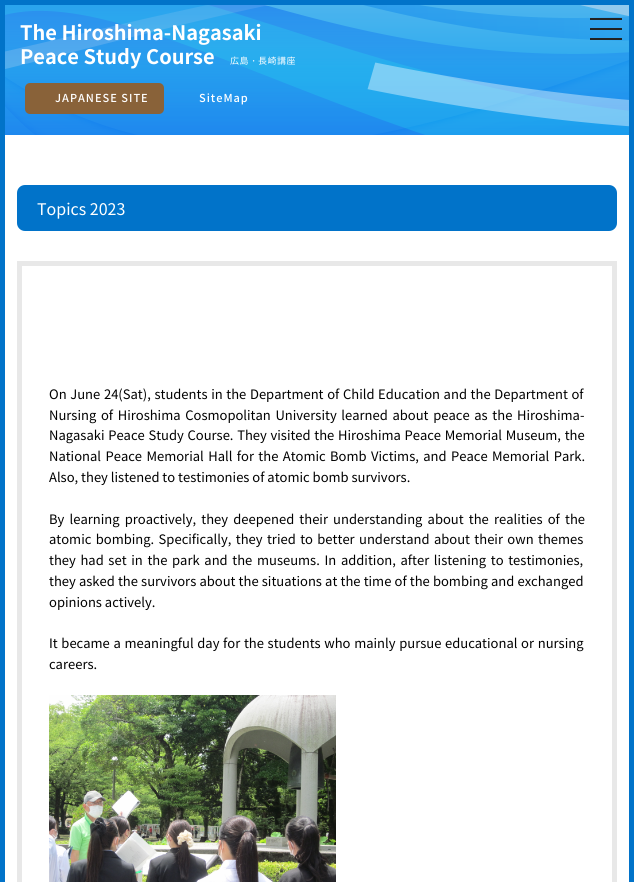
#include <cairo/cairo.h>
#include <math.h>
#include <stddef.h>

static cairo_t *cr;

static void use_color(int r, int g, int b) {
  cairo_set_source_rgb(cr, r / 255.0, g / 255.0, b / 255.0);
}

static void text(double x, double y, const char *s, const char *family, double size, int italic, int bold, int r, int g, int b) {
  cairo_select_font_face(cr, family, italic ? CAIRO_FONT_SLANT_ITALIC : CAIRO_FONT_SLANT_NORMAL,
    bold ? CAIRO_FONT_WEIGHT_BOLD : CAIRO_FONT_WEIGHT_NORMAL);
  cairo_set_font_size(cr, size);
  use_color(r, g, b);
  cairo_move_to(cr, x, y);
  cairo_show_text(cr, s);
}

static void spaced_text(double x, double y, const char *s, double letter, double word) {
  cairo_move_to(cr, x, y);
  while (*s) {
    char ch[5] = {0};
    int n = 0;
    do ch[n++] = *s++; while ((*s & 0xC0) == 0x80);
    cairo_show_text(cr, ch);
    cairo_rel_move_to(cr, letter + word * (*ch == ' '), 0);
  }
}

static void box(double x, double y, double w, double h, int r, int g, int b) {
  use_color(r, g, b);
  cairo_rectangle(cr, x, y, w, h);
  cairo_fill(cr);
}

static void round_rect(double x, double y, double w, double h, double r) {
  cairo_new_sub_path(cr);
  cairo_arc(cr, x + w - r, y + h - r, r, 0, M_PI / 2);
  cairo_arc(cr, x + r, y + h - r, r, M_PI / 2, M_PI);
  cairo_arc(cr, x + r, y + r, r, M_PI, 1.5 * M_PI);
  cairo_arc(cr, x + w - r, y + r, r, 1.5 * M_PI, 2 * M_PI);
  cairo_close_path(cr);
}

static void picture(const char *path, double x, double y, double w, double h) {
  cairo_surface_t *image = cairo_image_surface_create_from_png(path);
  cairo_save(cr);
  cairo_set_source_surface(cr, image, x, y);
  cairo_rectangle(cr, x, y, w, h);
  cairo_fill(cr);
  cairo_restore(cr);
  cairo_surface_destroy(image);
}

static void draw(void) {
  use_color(255, 255, 255);
  cairo_paint(cr);
  cairo_rectangle(cr, 2.5, 2.5, 629, 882);
  use_color(1, 115, 201);
  cairo_set_line_width(cr, 5);
  cairo_stroke(cr);
  picture("img_01.png", 5, 5, 624, 130);
  use_color(137, 98, 57);
  round_rect(25, 83, 139, 31, 5);
  cairo_fill(cr);
  use_color(1, 115, 201);
  round_rect(17, 185, 600, 46, 8);
  cairo_fill(cr);
  cairo_rectangle(cr, 19.5, 263.5, 595, 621);
  use_color(232, 232, 232);
  cairo_stroke(cr);
  picture("img_02.png", 49, 695, 287, 187);
  box(590, 28, 32, 2, 34, 34, 34);
  box(590, 18, 32, 2, 34, 34, 34);
  box(590, 38, 32, 2, 34, 34, 34);
  text(20, 40, "The Hiroshima-Nagasaki", "Noto Sans CJK JP", 20, 0, 1, 255, 255, 255);
  text(20, 64, "Peace Study Course", "Noto Sans CJK JP", 20, 0, 1, 255, 255, 255);
  cairo_select_font_face(cr, "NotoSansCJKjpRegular", CAIRO_FONT_SLANT_NORMAL, CAIRO_FONT_WEIGHT_NORMAL);
  cairo_set_font_size(cr, 9);
  spaced_text(230, 64, "広島", 0.5, 0);
  cairo_select_font_face(cr, "WenQuanYi Zen Hei Medium", CAIRO_FONT_SLANT_NORMAL, CAIRO_FONT_WEIGHT_NORMAL);
  spaced_text(249, 64, "・", 0.5, 0);
  cairo_select_font_face(cr, "NotoSansCJKjpRegular", CAIRO_FONT_SLANT_NORMAL, CAIRO_FONT_WEIGHT_NORMAL);
  spaced_text(258, 64, "長崎講座", 0.5, 0);
  cairo_select_font_face(cr, "Noto Sans CJK JP Medium", CAIRO_FONT_SLANT_NORMAL, CAIRO_FONT_WEIGHT_NORMAL);
  cairo_set_font_size(cr, 11);
  spaced_text(55, 102, "JAPANESE SITE", 1, 0);
  spaced_text(199, 102, "SiteMap", 1, 0);
  text(37, 215, "Topics 2023", "NotoSansCJKjpRegular", 16, 0, 0, 255, 255, 255);
  cairo_set_font_size(cr, 13);
  use_color(0, 0, 0);
  spaced_text(49, 399, "On June 24(Sat), students in the Department of Child Education and the Department of", 0, 0.75);
  spaced_text(49, 420, "Nursing of Hiroshima Cosmopolitan University learned about peace as the Hiroshima-", 0, 1.75);
  spaced_text(49, 440, "Nagasaki Peace Study Course. They visited the Hiroshima Peace Memorial Museum, the", 0, 0.75);
  spaced_text(49, 461, "National Peace Memorial Hall for the Atomic Bomb Victims, and Peace Memorial Park.", 0, 1.5);
  text(49, 482, "Also, they listened to testimonies of atomic bomb survivors.", "NotoSansCJKjpRegular", 13, 0, 0, 0, 0, 0);
  spaced_text(49, 524, "By learning proactively, they deepened their understanding about the realities of the", 0, 2.25);
  spaced_text(49, 544, "atomic bombing. Specifically, they tried to better understand about their own themes", 0, 1.5);
  spaced_text(49, 565, "they had set in the park and the museums. In addition, after listening to testimonies,", 0, 1.75);
  spaced_text(49, 586, "they asked the survivors about the situations at the time of the bombing and exchanged", 0, 0.25);
  text(49, 607, "opinions actively.", "NotoSansCJKjpRegular", 13, 0, 0, 0, 0, 0);
  spaced_text(49, 648, "It became a meaningful day for the students who mainly pursue educational or nursing", 0, 0.75);
  text(49, 669, "careers.", "NotoSansCJKjpRegular", 13, 0, 0, 0, 0, 0);
}

int main(void) {
  cairo_surface_t *surface = cairo_image_surface_create(CAIRO_FORMAT_RGB24, 634, 882);
  cr = cairo_create(surface);
  cairo_font_options_t *options = cairo_font_options_create();
  cairo_font_options_set_hint_metrics(options, CAIRO_HINT_METRICS_OFF);
  cairo_font_options_set_hint_style(options, CAIRO_HINT_STYLE_NONE);
  cairo_set_font_options(cr, options);
  cairo_set_miter_limit(cr, 4);
  draw();
  cairo_surface_write_to_png(surface, "out.png");
  cairo_font_options_destroy(options);
  cairo_destroy(cr);
  cairo_surface_destroy(surface);
  return 0;
}
